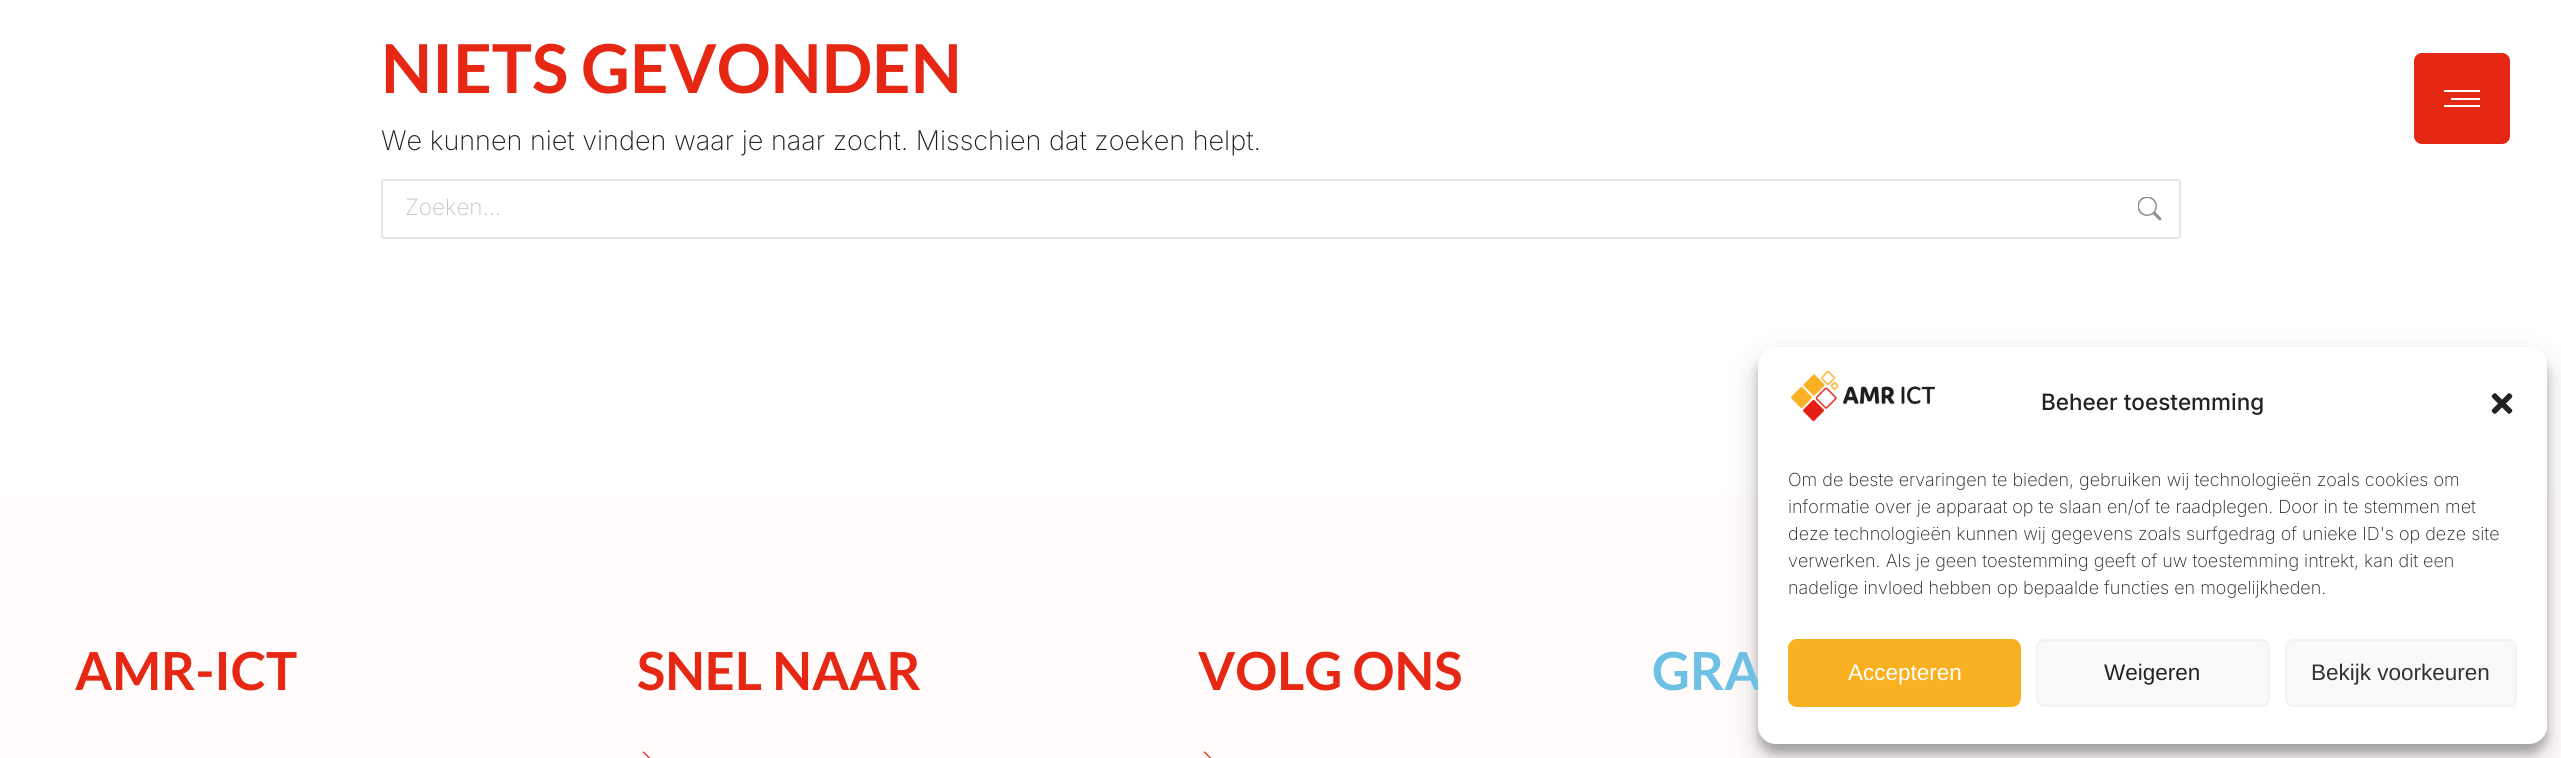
#include <cairo/cairo.h>
#include <math.h>
#include <stddef.h>

static cairo_t *cr;

static void use_color(int r, int g, int b) {
  cairo_set_source_rgb(cr, r / 255.0, g / 255.0, b / 255.0);
}

static void text(double x, double y, const char *s, const char *family, double size, int italic, int bold, int r, int g, int b) {
  cairo_select_font_face(cr, family, italic ? CAIRO_FONT_SLANT_ITALIC : CAIRO_FONT_SLANT_NORMAL,
    bold ? CAIRO_FONT_WEIGHT_BOLD : CAIRO_FONT_WEIGHT_NORMAL);
  cairo_set_font_size(cr, size);
  use_color(r, g, b);
  cairo_move_to(cr, x, y);
  cairo_show_text(cr, s);
}

static void box(double x, double y, double w, double h, int r, int g, int b) {
  use_color(r, g, b);
  cairo_rectangle(cr, x, y, w, h);
  cairo_fill(cr);
}

static void round_rect(double x, double y, double w, double h, double r) {
  cairo_new_sub_path(cr);
  cairo_arc(cr, x + w - r, y + h - r, r, 0, M_PI / 2);
  cairo_arc(cr, x + r, y + h - r, r, M_PI / 2, M_PI);
  cairo_arc(cr, x + r, y + r, r, M_PI, 1.5 * M_PI);
  cairo_arc(cr, x + w - r, y + r, r, 1.5 * M_PI, 2 * M_PI);
  cairo_close_path(cr);
}

static void shadow(double x, double y, double w, double h, double r, double blur, double alpha) {
  cairo_push_group_with_content(cr, CAIRO_CONTENT_ALPHA);
  cairo_set_operator(cr, CAIRO_OPERATOR_SOURCE);
  for (int i = 15; i >= -15 && fmin(w, h) + blur * i / 3 > 0; i -= 2) {
    double e = blur * i / 6;
    cairo_set_source_rgba(cr, 0, 0, 0, alpha * erfc((i - 1) / 8.5) / 2);
    round_rect(x - e, y - e, w + 2 * e, h + 2 * e, fmax(0, fmin(r + e + blur * .6, fmin(w, h) / 2 + e)));
    cairo_fill(cr);
  }
  cairo_pattern_t *soft = cairo_pop_group(cr);
  cairo_mask(cr, soft);
  cairo_pattern_destroy(soft);
}

static void picture(const char *path, double x, double y, double w, double h) {
  cairo_surface_t *image = cairo_image_surface_create_from_png(path);
  cairo_save(cr);
  cairo_set_source_surface(cr, image, x, y);
  cairo_rectangle(cr, x, y, w, h);
  cairo_fill(cr);
  cairo_restore(cr);
  cairo_surface_destroy(image);
}

static void draw(void) {
  use_color(255, 255, 255);
  cairo_paint(cr);
  round_rect(382, 180, 1798, 58, 2);
  use_color(231, 231, 231);
  cairo_stroke(cr);
  picture("img_01.png", 2138, 197, 24, 24);
  use_color(229, 39, 19);
  round_rect(2414, 53, 96, 91, 8);
  cairo_fill(cr);
  box(2444, 90, 36, 2, 255, 255, 255);
  box(2451, 98, 29, 2, 255, 255, 255);
  box(2444, 105, 36, 2, 255, 255, 255);
  box(0, 494, 2561, 264, 255, 252, 251);
  picture("img_02.png", 642, 751, 9, 7);
  picture("img_02.png", 1203, 751, 9, 7);
  use_color(0, 0, 0);
  shadow(1758, 356, 789, 397, 18, 4.5, 0.23);
  shadow(1758, 362, 789, 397, 18, 15, 0.19);
  text(381, 93, "NIETS GEVONDEN", "Lato", 67.5, 0, 1, 229, 39, 19);
  text(381, 150, "We kunnen niet vinden waar je naar zocht. Misschien dat zoeken helpt.", "Inter ExtraLight", 27, 0, 0, 29, 29, 27);
  text(405, 215, "Zoeken…", "Inter ExtraLight", 22.5, 0, 0, 196, 197, 201);
  text(75, 690, "AMR-ICT", "Lato", 52.5, 0, 1, 229, 39, 19);
  text(637, 690, "SNEL NAAR", "Lato", 52.5, 0, 1, 229, 39, 19);
  text(1198, 690, "VOLG ONS", "Lato", 52.5, 0, 1, 229, 39, 19);
  text(1652, 690, "GRA", "Lato", 52.5, 0, 1, 110, 193, 228);
  use_color(255, 255, 255);
  round_rect(1758, 347, 789, 397, 18);
  cairo_fill(cr);
  picture("img_03.png", 1791, 370, 144, 52);
  text(2041, 410, "Beheer toestemming", "Inter Medium", 22.5, 0, 0, 34, 34, 34);
  picture("img_04.png", 2491, 393, 22, 21);
  text(1788, 486, "Om de beste ervaringen te bieden, gebruiken wij technologieën zoals cookies om", "Inter ExtraLight", 18, 0, 0, 34, 34, 34);
  text(1788, 513, "informatie over je apparaat op te slaan en/of te raadplegen. Door in te stemmen met", "Inter ExtraLight", 18, 0, 0, 34, 34, 34);
  text(1788, 540, "deze technologieën kunnen wij gegevens zoals surfgedrag of unieke ID's op deze site", "Inter ExtraLight", 18, 0, 0, 34, 34, 34);
  text(1788, 567, "verwerken. Als je geen toestemming geeft of uw toestemming intrekt, kan dit een", "Inter ExtraLight", 18, 0, 0, 34, 34, 34);
  text(1788, 594, "nadelige invloed hebben op bepaalde functies en mogelijkheden.", "Inter ExtraLight", 18, 0, 0, 34, 34, 34);
  use_color(249, 177, 34);
  round_rect(1789, 640, 231, 66, 8);
  cairo_fill_preserve(cr);
  cairo_stroke(cr);
  text(1848, 680, "Accepteren", "Liberation Sans", 22.5, 0, 0, 255, 255, 255);
  use_color(249, 249, 249);
  round_rect(2037, 640, 232, 66, 8);
  cairo_fill_preserve(cr);
  use_color(242, 242, 242);
  cairo_stroke(cr);
  text(2104, 680, "Weigeren", "Liberation Sans", 22.5, 0, 0, 34, 34, 34);
  use_color(249, 249, 249);
  round_rect(2286, 640, 230, 66, 8);
  cairo_fill_preserve(cr);
  use_color(242, 242, 242);
  cairo_stroke(cr);
  text(2311, 680, "Bekijk voorkeuren", "Liberation Sans", 22.5, 0, 0, 51, 51, 51);
}

int main(void) {
  cairo_surface_t *surface = cairo_image_surface_create(CAIRO_FORMAT_RGB24, 2561, 758);
  cr = cairo_create(surface);
  cairo_font_options_t *options = cairo_font_options_create();
  cairo_font_options_set_hint_metrics(options, CAIRO_HINT_METRICS_OFF);
  cairo_font_options_set_hint_style(options, CAIRO_HINT_STYLE_NONE);
  cairo_set_font_options(cr, options);
  cairo_set_miter_limit(cr, 4);
  draw();
  cairo_surface_write_to_png(surface, "out.png");
  cairo_font_options_destroy(options);
  cairo_destroy(cr);
  cairo_surface_destroy(surface);
  return 0;
}
